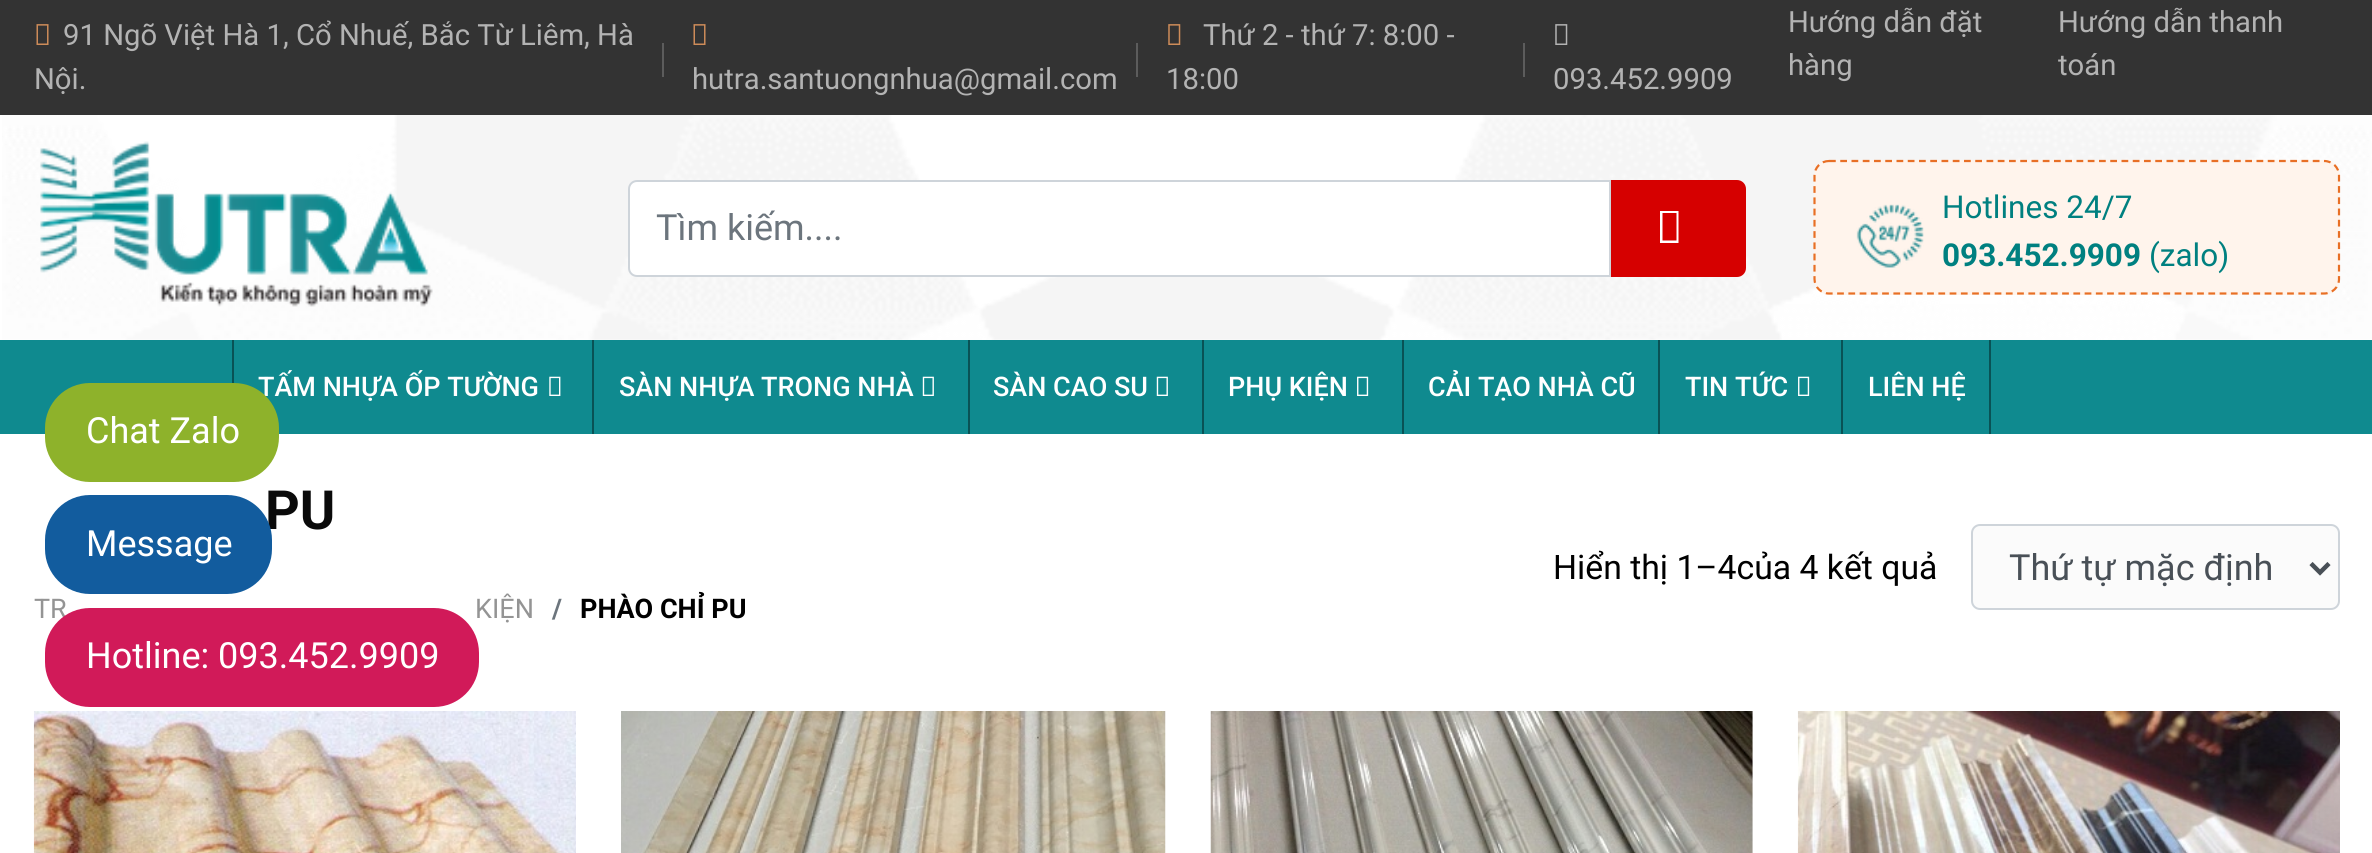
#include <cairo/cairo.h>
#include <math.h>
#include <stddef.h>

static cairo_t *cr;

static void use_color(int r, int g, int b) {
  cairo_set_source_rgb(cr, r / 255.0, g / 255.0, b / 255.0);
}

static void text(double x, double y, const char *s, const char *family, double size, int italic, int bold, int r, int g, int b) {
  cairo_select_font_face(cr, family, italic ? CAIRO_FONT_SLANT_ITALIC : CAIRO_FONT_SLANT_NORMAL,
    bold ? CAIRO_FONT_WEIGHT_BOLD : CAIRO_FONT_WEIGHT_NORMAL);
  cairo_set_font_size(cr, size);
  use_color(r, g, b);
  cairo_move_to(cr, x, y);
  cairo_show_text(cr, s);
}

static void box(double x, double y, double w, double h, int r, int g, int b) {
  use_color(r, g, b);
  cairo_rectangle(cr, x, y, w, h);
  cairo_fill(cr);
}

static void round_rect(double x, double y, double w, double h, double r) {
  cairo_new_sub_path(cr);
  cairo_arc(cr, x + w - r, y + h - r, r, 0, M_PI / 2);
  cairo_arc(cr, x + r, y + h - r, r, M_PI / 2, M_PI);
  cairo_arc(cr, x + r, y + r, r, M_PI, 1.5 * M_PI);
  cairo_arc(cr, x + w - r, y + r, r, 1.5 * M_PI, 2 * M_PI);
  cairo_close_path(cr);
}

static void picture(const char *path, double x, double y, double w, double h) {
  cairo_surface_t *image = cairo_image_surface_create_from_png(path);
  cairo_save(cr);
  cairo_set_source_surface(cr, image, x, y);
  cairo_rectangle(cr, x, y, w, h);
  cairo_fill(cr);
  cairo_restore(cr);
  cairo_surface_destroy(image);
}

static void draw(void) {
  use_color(255, 255, 255);
  cairo_paint(cr);
  box(0, 0, 2372, 115, 51, 51, 51);
  picture("img_01.png", 36, 24, 13, 21);
  picture("img_01.png", 693, 24, 13, 21);
  box(662, 43, 2, 34, 92, 92, 92);
  picture("img_02.png", 1168, 24, 13, 21);
  box(1136, 43, 2, 34, 92, 92, 92);
  picture("img_03.png", 1555, 24, 13, 21);
  box(1523, 43, 2, 34, 92, 92, 92);
  picture("img_04.png", 2, 115, 2370, 225);
  picture("img_05.png", 40, 141, 393, 166);
  use_color(255, 255, 255);
  cairo_new_path(cr);
  cairo_move_to(cr, 637, 181);
  cairo_line_to(cr, 1610, 181);
  cairo_line_to(cr, 1610, 276);
  cairo_line_to(cr, 637, 276);
  cairo_curve_to(cr, 632.5, 276, 629, 272.5, 629, 268);
  cairo_line_to(cr, 629, 189);
  cairo_curve_to(cr, 629, 184.5, 632.5, 181, 637, 181);
  cairo_close_path(cr);
  cairo_fill_preserve(cr);
  use_color(206, 212, 218);
  cairo_stroke(cr);
  use_color(214, 0, 0);
  cairo_new_path(cr);
  cairo_move_to(cr, 1611, 180);
  cairo_line_to(cr, 1737, 180);
  cairo_curve_to(cr, 1742, 180, 1746, 184, 1746, 189);
  cairo_line_to(cr, 1746, 268);
  cairo_curve_to(cr, 1746, 273, 1742, 277, 1737, 277);
  cairo_line_to(cr, 1611, 277);
  cairo_close_path(cr);
  cairo_fill(cr);
  use_color(255, 255, 255);
  cairo_new_path(cr);
  cairo_move_to(cr, 1660, 243);
  cairo_line_to(cr, 1660, 211);
  cairo_line_to(cr, 1678.5, 211);
  cairo_line_to(cr, 1678.5, 243);
  cairo_close_path(cr);
  cairo_move_to(cr, 1662.5, 240.5);
  cairo_line_to(cr, 1676.5, 240.5);
  cairo_line_to(cr, 1676.5, 213);
  cairo_line_to(cr, 1662.5, 213);
  cairo_close_path(cr);
  cairo_fill(cr);
  use_color(255, 244, 236);
  round_rect(1814, 160, 526, 135, 16);
  cairo_fill(cr);
  cairo_new_path(cr);
  cairo_move_to(cr, 1829, 161);
  cairo_line_to(cr, 2324, 161);
  cairo_curve_to(cr, 2332.5, 161, 2339, 167.5, 2339, 175.5);
  cairo_line_to(cr, 2339, 279);
  cairo_curve_to(cr, 2339, 287, 2332.5, 293.5, 2324, 293.5);
  cairo_line_to(cr, 1829, 293.5);
  cairo_curve_to(cr, 1821, 293.5, 1814.5, 287, 1814.5, 279);
  cairo_line_to(cr, 1814.5, 175.5);
  cairo_curve_to(cr, 1814.5, 167.5, 1821, 161, 1829, 161);
  cairo_close_path(cr);
  use_color(232, 111, 37);
  cairo_set_line_width(cr, 2.2);
  cairo_set_dash(cr, (double[]){6.75, 4.5}, 2, 0);
  cairo_stroke(cr);
  picture("img_06.png", 1856, 204, 68, 64);
  box(0, 340, 2372, 94, 15, 138, 143);
  box(232, 340, 2, 43, 9, 82, 85);
  box(592, 340, 2, 94, 9, 82, 85);
  picture("img_07.png", 549, 376, 12, 20);
  box(968, 340, 2, 94, 9, 82, 85);
  picture("img_08.png", 922, 376, 12, 20);
  box(1202, 340, 2, 94, 9, 82, 85);
  picture("img_08.png", 1156, 376, 12, 20);
  box(1402, 340, 2, 94, 9, 82, 85);
  picture("img_09.png", 1357, 376, 12, 20);
  box(1658, 340, 2, 94, 9, 82, 85);
  box(1841, 340, 2, 94, 9, 82, 85);
  picture("img_09.png", 1798, 376, 12, 20);
  box(1989, 340, 2, 94, 9, 82, 85);
  use_color(251, 251, 251);
  round_rect(1972, 525, 367, 84, 8);
  cairo_fill_preserve(cr);
  use_color(206, 212, 218);
  cairo_set_line_width(cr, 2);
  cairo_set_dash(cr, NULL, 0, 0);
  cairo_stroke(cr);
  cairo_new_path(cr);
  cairo_move_to(cr, 2311, 563.5);
  cairo_line_to(cr, 2320, 572.5);
  cairo_line_to(cr, 2329, 563.5);
  use_color(73, 80, 87);
  cairo_set_line_width(cr, 4.5);
  cairo_stroke(cr);
  picture("img_10.png", 33, 711, 543, 142);
  picture("img_11.png", 621, 711, 545, 142);
  picture("img_12.png", 1210, 711, 543, 142);
  picture("img_13.png", 1797, 711, 543, 142);
  text(63, 45, "91 Ngõ Việt Hà 1, Cổ Nhuế, Bắc Từ Liêm, Hà", "Roboto", 29.25, 0, 0, 179, 179, 179);
  text(34, 89, "Nội.", "Roboto", 29.25, 0, 0, 179, 179, 179);
  text(692, 89, "hutra.santuongnhua@gmail.com", "Roboto", 29.25, 0, 0, 179, 179, 179);
  text(1203, 45, "Thứ 2 - thứ 7: 8:00 -", "Roboto", 29.25, 0, 0, 179, 179, 179);
  text(1166, 89, "18:00", "Roboto", 29.25, 0, 0, 179, 179, 179);
  text(1553, 89, "093.452.9909", "Roboto", 29.25, 0, 0, 179, 179, 179);
  text(1788, 32, "Hướng dẫn đặt", "Roboto", 29.25, 0, 0, 179, 179, 179);
  text(1788, 75, "hàng", "Roboto", 29.25, 0, 0, 179, 179, 179);
  text(2058, 32, "Hướng dẫn thanh", "Roboto", 29.25, 0, 0, 179, 179, 179);
  text(2058, 75, "toán", "Roboto", 29.25, 0, 0, 179, 179, 179);
  text(656, 240, "Tìm kiếm....", "Roboto", 36, 0, 0, 108, 117, 125);
  text(1942, 218, "Hotlines 24/7", "Roboto", 31.5, 0, 0, 0, 128, 128);
  text(1942, 266, "093.452.9909", "Roboto", 31.5, 0, 1, 0, 128, 128);
  text(2149, 266, "(zalo)", "Roboto", 31.5, 0, 0, 0, 128, 128);
  text(258, 396, "TẤM NHỰA ỐP TƯỜNG", "Roboto Medium", 27, 0, 0, 255, 255, 255);
  text(619, 396, "SÀN NHỰA TRONG NHÀ", "Roboto Medium", 27, 0, 0, 255, 255, 255);
  text(993, 396, "SÀN CAO SU", "Roboto Medium", 27, 0, 0, 255, 255, 255);
  text(1228, 396, "PHỤ KIỆN", "Roboto Medium", 27, 0, 0, 255, 255, 255);
  text(1428, 396, "CẢI TẠO NHÀ CŨ", "Roboto Medium", 27, 0, 0, 255, 255, 255);
  text(1685, 396, "TIN TỨC", "Roboto Medium", 27, 0, 0, 255, 255, 255);
  text(1868, 396, "LIÊN HỆ", "Roboto Medium", 27, 0, 0, 255, 255, 255);
  use_color(142, 178, 43);
  round_rect(45, 383, 234, 99, 45);
  cairo_fill(cr);
  text(86, 443, "Chat Zalo", "Roboto", 36, 0, 0, 255, 255, 255);
  text(265, 529, "PU", "Roboto", 54, 0, 1, 10, 10, 10);
  use_color(18, 92, 158);
  round_rect(45, 495, 227, 99, 45);
  cairo_fill(cr);
  text(86, 556, "Message", "Roboto", 36, 0, 0, 255, 255, 255);
  text(34, 618, "TR", "Roboto", 27, 0, 0, 148, 148, 148);
  text(475, 618, "KIỆN", "Roboto", 27, 0, 0, 148, 148, 148);
  use_color(209, 26, 89);
  round_rect(45, 608, 434, 99, 45);
  cairo_fill(cr);
  text(86, 668, "Hotline: 093.452.9909", "Roboto", 36, 0, 0, 255, 255, 255);
  text(552, 618, "/", "Roboto", 27, 0, 1, 108, 117, 125);
  text(580, 618, "PHÀO CHỈ PU", "Roboto", 27, 0, 1, 0, 0, 0);
  text(1553, 579, "Hiển thị 1–4của 4 kết quả", "Roboto", 33.75, 0, 0, 0, 0, 0);
  text(2009, 580, "Thứ tự mặc định", "Roboto", 36, 0, 0, 73, 80, 87);
}

int main(void) {
  cairo_surface_t *surface = cairo_image_surface_create(CAIRO_FORMAT_RGB24, 2372, 853);
  cr = cairo_create(surface);
  cairo_font_options_t *options = cairo_font_options_create();
  cairo_font_options_set_hint_metrics(options, CAIRO_HINT_METRICS_OFF);
  cairo_font_options_set_hint_style(options, CAIRO_HINT_STYLE_NONE);
  cairo_set_font_options(cr, options);
  cairo_set_miter_limit(cr, 4);
  draw();
  cairo_surface_write_to_png(surface, "out.png");
  cairo_font_options_destroy(options);
  cairo_destroy(cr);
  cairo_surface_destroy(surface);
  return 0;
}
